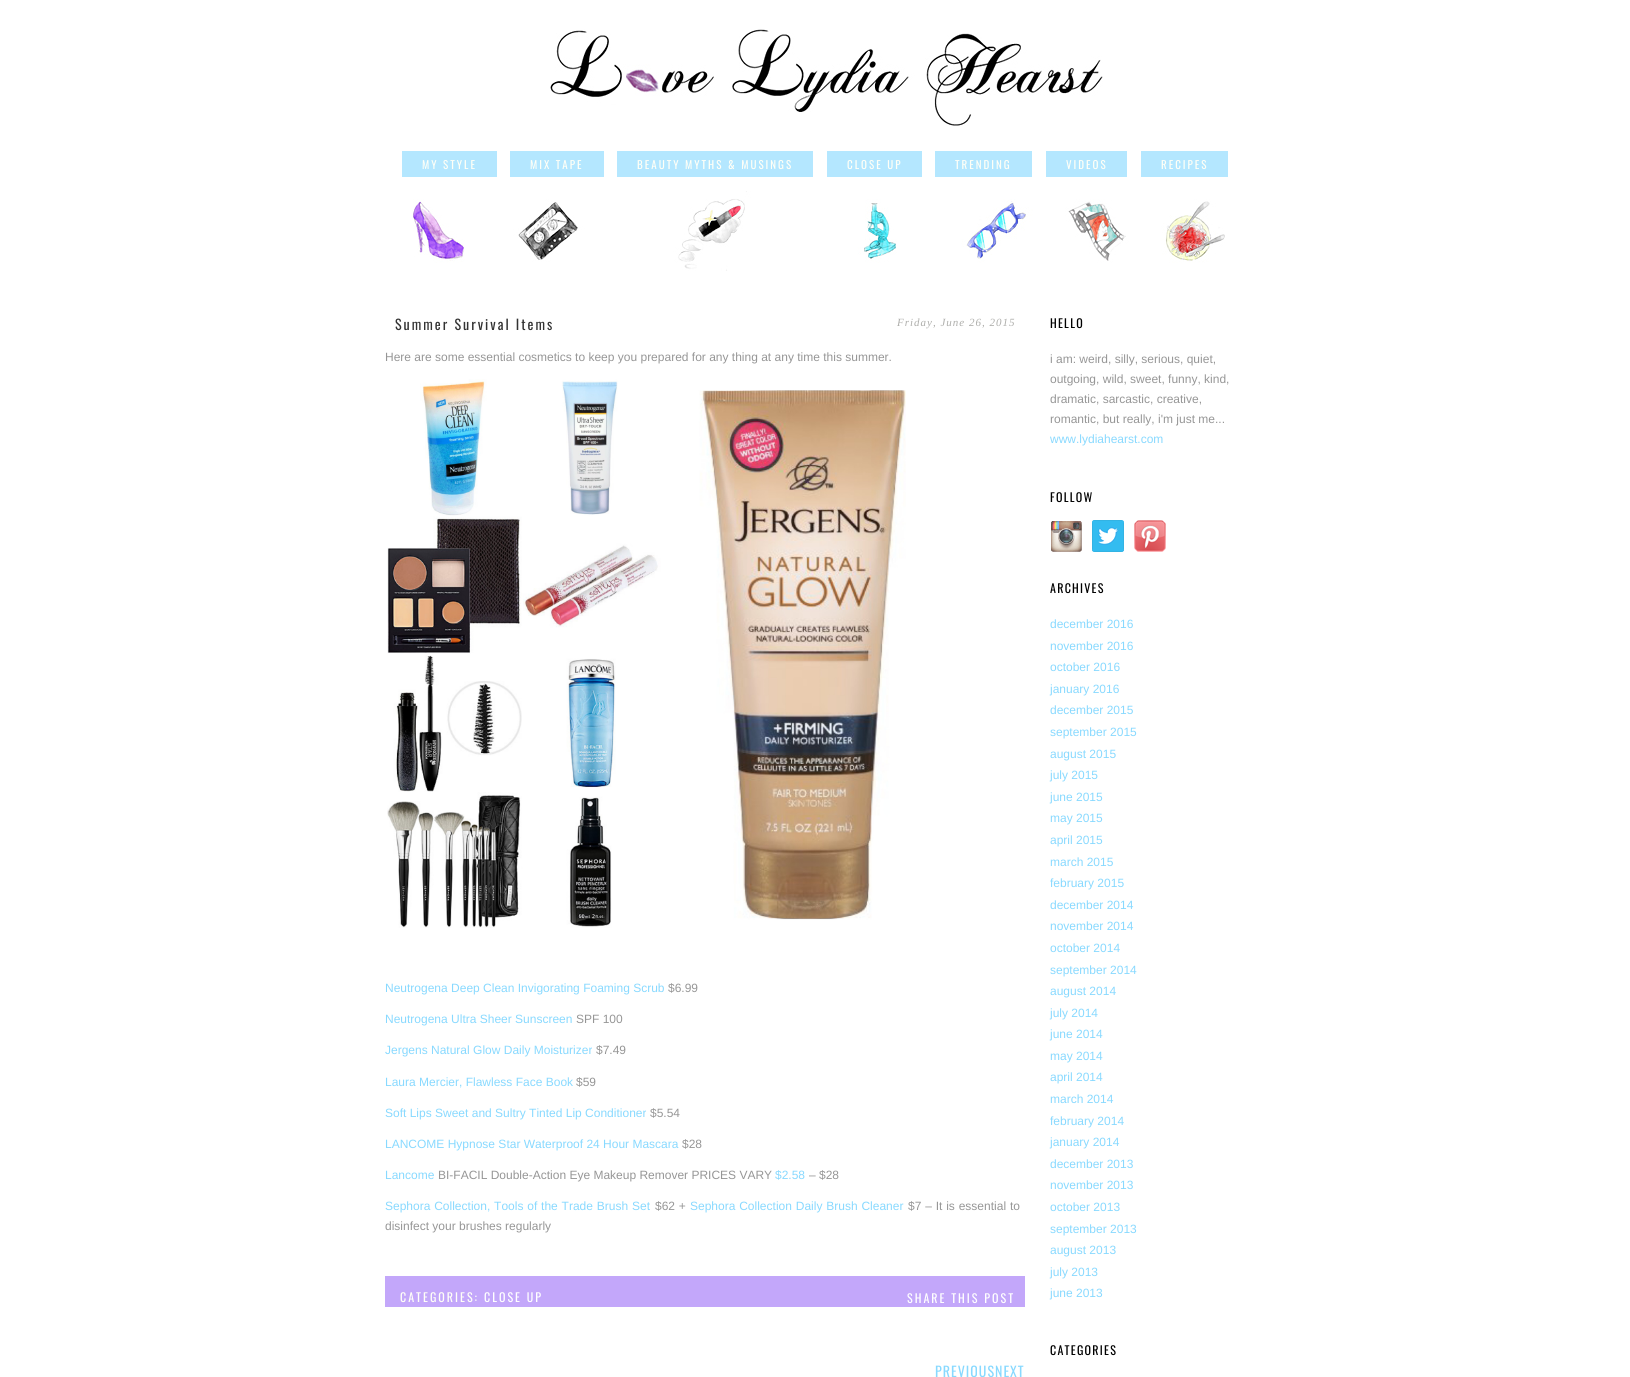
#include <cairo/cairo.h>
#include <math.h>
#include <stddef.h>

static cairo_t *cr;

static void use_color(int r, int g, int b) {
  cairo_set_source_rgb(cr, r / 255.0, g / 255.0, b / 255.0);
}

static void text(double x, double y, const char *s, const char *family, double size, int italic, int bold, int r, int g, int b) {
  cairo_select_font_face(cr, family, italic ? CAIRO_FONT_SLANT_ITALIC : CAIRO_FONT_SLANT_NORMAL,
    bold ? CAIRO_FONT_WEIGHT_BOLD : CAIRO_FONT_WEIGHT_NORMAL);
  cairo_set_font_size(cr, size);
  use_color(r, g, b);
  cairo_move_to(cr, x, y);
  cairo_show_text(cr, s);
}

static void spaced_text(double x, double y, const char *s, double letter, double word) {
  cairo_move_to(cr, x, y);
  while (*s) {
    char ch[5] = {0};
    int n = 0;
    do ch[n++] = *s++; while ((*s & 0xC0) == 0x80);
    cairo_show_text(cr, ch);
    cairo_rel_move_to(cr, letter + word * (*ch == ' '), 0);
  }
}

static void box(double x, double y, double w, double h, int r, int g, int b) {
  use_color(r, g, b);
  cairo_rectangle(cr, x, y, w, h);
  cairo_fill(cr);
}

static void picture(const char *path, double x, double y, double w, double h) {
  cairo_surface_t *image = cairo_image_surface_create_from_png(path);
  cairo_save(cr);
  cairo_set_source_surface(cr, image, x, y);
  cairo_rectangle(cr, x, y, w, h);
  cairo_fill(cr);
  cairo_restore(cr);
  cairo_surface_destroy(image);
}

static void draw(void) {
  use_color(255, 255, 255);
  cairo_paint(cr);
  picture("img_01.png", 550, 29, 553, 97);
  box(402, 151, 95, 26, 180, 231, 255);
  box(510, 151, 94, 26, 180, 231, 255);
  box(617, 151, 196, 26, 180, 231, 255);
  box(827, 151, 95, 26, 180, 231, 255);
  box(935, 151, 97, 26, 180, 231, 255);
  box(1046, 151, 81, 26, 180, 231, 255);
  box(1141, 151, 87, 26, 180, 231, 255);
  picture("img_02.png", 413, 191, 812, 80);
  picture("img_03.png", 387, 379, 519, 549);
  box(385, 1276, 640, 31, 195, 167, 250);
  picture("img_04.png", 1051, 521, 31, 31);
  picture("img_05.png", 1092, 520, 32, 32);
  picture("img_06.png", 1134, 520, 32, 32);
  cairo_select_font_face(cr, "Oswald", CAIRO_FONT_SLANT_NORMAL, CAIRO_FONT_WEIGHT_NORMAL);
  cairo_set_font_size(cr, 11);
  use_color(255, 255, 247);
  spaced_text(422, 169, "MY STYLE", 2, 0);
  spaced_text(530, 169, "MIX TAPE", 2, 0);
  spaced_text(637, 169, "BEAUTY MYTHS & MUSINGS", 2, 0);
  spaced_text(847, 169, "CLOSE UP", 2, 0);
  spaced_text(955, 169, "TRENDING", 2, 0);
  spaced_text(1066, 169, "VIDEOS", 2, 0);
  spaced_text(1161, 169, "RECIPES", 2, 0);
  cairo_set_font_size(cr, 14);
  use_color(51, 51, 51);
  spaced_text(395, 330, "Summer Survival Items", 2, 0);
  cairo_select_font_face(cr, "Liberation Serif", CAIRO_FONT_SLANT_ITALIC, CAIRO_FONT_WEIGHT_NORMAL);
  cairo_set_font_size(cr, 11);
  use_color(174, 174, 171);
  spaced_text(897, 326, "Friday, June 26, 2015", 1, 0);
  text(385, 361, "Here are some essential cosmetics to keep you prepared for any thing at any time this summer.", "Liberation Sans", 12, 0, 0, 150, 150, 150);
  text(385, 992, "Neutrogena Deep Clean Invigorating Foaming Scrub", "Liberation Sans", 12, 0, 0, 136, 217, 255);
  text(668, 992, "$6.99", "Liberation Sans", 12, 0, 0, 150, 150, 150);
  text(385, 1023, "Neutrogena Ultra Sheer Sunscreen", "Liberation Sans", 12, 0, 0, 136, 217, 255);
  text(576, 1023, "SPF 100", "Liberation Sans", 12, 0, 0, 150, 150, 150);
  text(385, 1054, "Jergens Natural Glow Daily Moisturizer", "Liberation Sans", 12, 0, 0, 136, 217, 255);
  text(596, 1054, "$7.49", "Liberation Sans", 12, 0, 0, 150, 150, 150);
  text(385, 1086, "Laura Mercier, Flawless Face Book", "Liberation Sans", 12, 0, 0, 136, 217, 255);
  text(576, 1086, "$59", "Liberation Sans", 12, 0, 0, 150, 150, 150);
  text(385, 1117, "Soft Lips Sweet and Sultry Tinted Lip Conditioner", "Liberation Sans", 12, 0, 0, 136, 217, 255);
  text(650, 1117, "$5.54", "Liberation Sans", 12, 0, 0, 150, 150, 150);
  text(385, 1148, "LANCOME Hypnose Star Waterproof 24 Hour Mascara", "Liberation Sans", 12, 0, 0, 136, 217, 255);
  text(682, 1148, "$28", "Liberation Sans", 12, 0, 0, 150, 150, 150);
  text(385, 1179, "Lancome", "Liberation Sans", 12, 0, 0, 136, 217, 255);
  text(438, 1179, "BI-FACIL Double-Action Eye Makeup Remover PRICES VARY", "Liberation Sans", 12, 0, 0, 150, 150, 150);
  text(775, 1179, "$2.58", "Liberation Sans", 12, 0, 0, 136, 217, 255);
  text(809, 1179, "– $28", "Liberation Sans", 12, 0, 0, 150, 150, 150);
  use_color(136, 217, 255);
  spaced_text(385, 1210, "Sephora Collection, Tools of the Trade Brush Set", 0, 0.5);
  use_color(150, 150, 150);
  spaced_text(655, 1210, "$62 +", 0, 0.5);
  use_color(136, 217, 255);
  spaced_text(690, 1210, "Sephora Collection Daily Brush Cleaner", 0, 0.5);
  use_color(150, 150, 150);
  spaced_text(908, 1210, "$7 – It is essential to", 0, 0.5);
  text(385, 1230, "disinfect your brushes regularly", "Liberation Sans", 12, 0, 0, 150, 150, 150);
  cairo_select_font_face(cr, "Oswald", CAIRO_FONT_SLANT_NORMAL, CAIRO_FONT_WEIGHT_NORMAL);
  use_color(255, 255, 247);
  spaced_text(400, 1302, "CATEGORIES:", 2, 0);
  use_color(255, 255, 255);
  spaced_text(484, 1302, "CLOSE UP", 2, 0);
  spaced_text(907, 1303, "SHARE THIS POST", 2, 0);
  cairo_set_font_size(cr, 14);
  use_color(136, 217, 255);
  spaced_text(935, 1377, "PREVIOUS", 1, 0);
  spaced_text(995, 1377, "NEXT", 1, 0);
  cairo_set_font_size(cr, 12);
  use_color(0, 0, 0);
  spaced_text(1050, 328, "HELLO", 1.25, 0);
  text(1050, 363, "i am: weird, silly, serious, quiet,", "Liberation Sans", 12, 0, 0, 150, 150, 150);
  text(1050, 383, "outgoing, wild, sweet, funny, kind,", "Liberation Sans", 12, 0, 0, 150, 150, 150);
  text(1050, 403, "dramatic, sarcastic, creative,", "Liberation Sans", 12, 0, 0, 150, 150, 150);
  text(1050, 423, "romantic, but really, i'm just me...", "Liberation Sans", 12, 0, 0, 150, 150, 150);
  text(1050, 443, "www.lydiahearst.com", "Liberation Sans", 12, 0, 0, 136, 217, 255);
  cairo_select_font_face(cr, "Oswald", CAIRO_FONT_SLANT_NORMAL, CAIRO_FONT_WEIGHT_NORMAL);
  use_color(0, 0, 0);
  spaced_text(1050, 502, "FOLLOW", 1.25, 0);
  spaced_text(1050, 593, "ARCHIVES", 1.25, 0);
  text(1050, 628, "december 2016", "Liberation Sans", 12, 0, 0, 136, 217, 255);
  text(1050, 650, "november 2016", "Liberation Sans", 12, 0, 0, 136, 217, 255);
  text(1050, 671, "october 2016", "Liberation Sans", 12, 0, 0, 136, 217, 255);
  text(1050, 693, "january 2016", "Liberation Sans", 12, 0, 0, 136, 217, 255);
  text(1050, 714, "december 2015", "Liberation Sans", 12, 0, 0, 136, 217, 255);
  text(1050, 736, "september 2015", "Liberation Sans", 12, 0, 0, 136, 217, 255);
  text(1050, 758, "august 2015", "Liberation Sans", 12, 0, 0, 136, 217, 255);
  text(1050, 779, "july 2015", "Liberation Sans", 12, 0, 0, 136, 217, 255);
  text(1050, 801, "june 2015", "Liberation Sans", 12, 0, 0, 136, 217, 255);
  text(1050, 822, "may 2015", "Liberation Sans", 12, 0, 0, 136, 217, 255);
  text(1050, 844, "april 2015", "Liberation Sans", 12, 0, 0, 136, 217, 255);
  text(1050, 866, "march 2015", "Liberation Sans", 12, 0, 0, 136, 217, 255);
  text(1050, 887, "february 2015", "Liberation Sans", 12, 0, 0, 136, 217, 255);
  text(1050, 909, "december 2014", "Liberation Sans", 12, 0, 0, 136, 217, 255);
  text(1050, 930, "november 2014", "Liberation Sans", 12, 0, 0, 136, 217, 255);
  text(1050, 952, "october 2014", "Liberation Sans", 12, 0, 0, 136, 217, 255);
  text(1050, 974, "september 2014", "Liberation Sans", 12, 0, 0, 136, 217, 255);
  text(1050, 995, "august 2014", "Liberation Sans", 12, 0, 0, 136, 217, 255);
  text(1050, 1017, "july 2014", "Liberation Sans", 12, 0, 0, 136, 217, 255);
  text(1050, 1038, "june 2014", "Liberation Sans", 12, 0, 0, 136, 217, 255);
  text(1050, 1060, "may 2014", "Liberation Sans", 12, 0, 0, 136, 217, 255);
  text(1050, 1081, "april 2014", "Liberation Sans", 12, 0, 0, 136, 217, 255);
  text(1050, 1103, "march 2014", "Liberation Sans", 12, 0, 0, 136, 217, 255);
  text(1050, 1125, "february 2014", "Liberation Sans", 12, 0, 0, 136, 217, 255);
  text(1050, 1146, "january 2014", "Liberation Sans", 12, 0, 0, 136, 217, 255);
  text(1050, 1168, "december 2013", "Liberation Sans", 12, 0, 0, 136, 217, 255);
  text(1050, 1189, "november 2013", "Liberation Sans", 12, 0, 0, 136, 217, 255);
  text(1050, 1211, "october 2013", "Liberation Sans", 12, 0, 0, 136, 217, 255);
  text(1050, 1233, "september 2013", "Liberation Sans", 12, 0, 0, 136, 217, 255);
  text(1050, 1254, "august 2013", "Liberation Sans", 12, 0, 0, 136, 217, 255);
  text(1050, 1276, "july 2013", "Liberation Sans", 12, 0, 0, 136, 217, 255);
  text(1050, 1297, "june 2013", "Liberation Sans", 12, 0, 0, 136, 217, 255);
  cairo_select_font_face(cr, "Oswald", CAIRO_FONT_SLANT_NORMAL, CAIRO_FONT_WEIGHT_NORMAL);
  use_color(0, 0, 0);
  spaced_text(1050, 1355, "CATEGORIES", 1.25, 0);
}

int main(void) {
  cairo_surface_t *surface = cairo_image_surface_create(CAIRO_FORMAT_RGB24, 1630, 1377);
  cr = cairo_create(surface);
  cairo_font_options_t *options = cairo_font_options_create();
  cairo_font_options_set_hint_metrics(options, CAIRO_HINT_METRICS_OFF);
  cairo_font_options_set_hint_style(options, CAIRO_HINT_STYLE_NONE);
  cairo_set_font_options(cr, options);
  cairo_set_miter_limit(cr, 4);
  draw();
  cairo_surface_write_to_png(surface, "out.png");
  cairo_font_options_destroy(options);
  cairo_destroy(cr);
  cairo_surface_destroy(surface);
  return 0;
}
